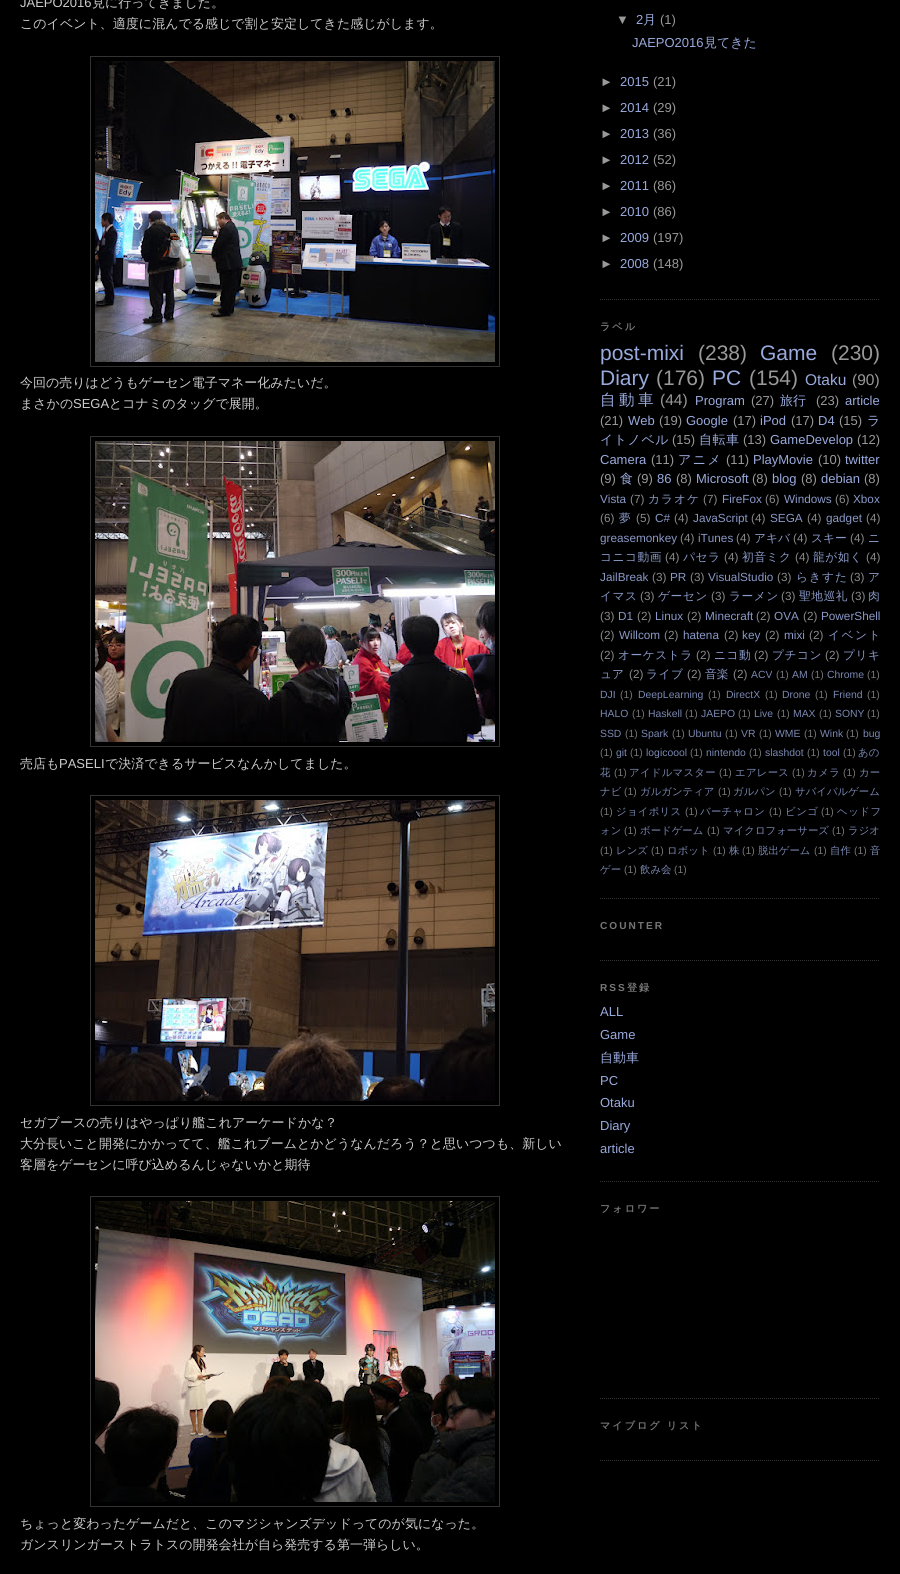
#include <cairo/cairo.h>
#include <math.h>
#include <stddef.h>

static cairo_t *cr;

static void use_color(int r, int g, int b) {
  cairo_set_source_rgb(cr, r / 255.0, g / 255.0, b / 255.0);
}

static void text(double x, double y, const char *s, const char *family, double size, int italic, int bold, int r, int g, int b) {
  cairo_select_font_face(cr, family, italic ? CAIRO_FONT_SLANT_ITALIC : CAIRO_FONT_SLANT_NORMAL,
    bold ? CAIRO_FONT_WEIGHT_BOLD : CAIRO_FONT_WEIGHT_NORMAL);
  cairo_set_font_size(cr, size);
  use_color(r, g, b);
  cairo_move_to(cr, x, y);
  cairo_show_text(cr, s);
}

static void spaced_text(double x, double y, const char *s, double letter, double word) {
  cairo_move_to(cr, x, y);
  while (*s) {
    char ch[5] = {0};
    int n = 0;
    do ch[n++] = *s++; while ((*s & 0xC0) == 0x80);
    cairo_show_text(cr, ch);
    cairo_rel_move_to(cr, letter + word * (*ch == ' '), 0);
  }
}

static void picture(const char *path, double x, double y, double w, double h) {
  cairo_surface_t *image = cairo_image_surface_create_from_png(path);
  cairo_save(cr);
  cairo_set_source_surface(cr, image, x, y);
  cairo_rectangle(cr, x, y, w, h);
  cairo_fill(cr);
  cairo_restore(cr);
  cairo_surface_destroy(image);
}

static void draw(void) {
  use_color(0, 0, 0);
  cairo_paint(cr);
  cairo_rectangle(cr, 90.5, 56.5, 409, 310);
  use_color(51, 51, 51);
  cairo_set_line_width(cr, 1);
  cairo_stroke(cr);
  picture("img_01.png", 95, 61, 400, 301);
  cairo_rectangle(cr, 90.5, 436.5, 409, 310);
  cairo_stroke(cr);
  picture("img_02.png", 95, 441, 400, 301);
  cairo_rectangle(cr, 90.5, 795.5, 409, 310);
  cairo_stroke(cr);
  picture("img_03.png", 95, 800, 400, 301);
  cairo_rectangle(cr, 90.5, 1196.5, 409, 310);
  cairo_stroke(cr);
  picture("img_04.png", 95, 1201, 400, 301);
  cairo_new_path(cr);
  cairo_move_to(cr, 600, 299.5);
  cairo_line_to(cr, 880, 299.5);
  cairo_set_dash(cr, (double[]){1, 1}, 2, 0);
  cairo_stroke(cr);
  cairo_new_path(cr);
  cairo_move_to(cr, 600, 898.5);
  cairo_line_to(cr, 880, 898.5);
  cairo_stroke(cr);
  cairo_new_path(cr);
  cairo_move_to(cr, 600, 960.5);
  cairo_line_to(cr, 880, 960.5);
  cairo_stroke(cr);
  cairo_new_path(cr);
  cairo_move_to(cr, 600, 1181.5);
  cairo_line_to(cr, 880, 1181.5);
  cairo_stroke(cr);
  cairo_new_path(cr);
  cairo_move_to(cr, 600, 1398.5);
  cairo_line_to(cr, 880, 1398.5);
  cairo_stroke(cr);
  cairo_new_path(cr);
  cairo_move_to(cr, 600, 1460.5);
  cairo_line_to(cr, 880, 1460.5);
  cairo_stroke(cr);
  text(20, 7, "JAEPO2016", "Liberation Sans", 13, 0, 0, 204, 204, 204);
  text(92, 7, "見に行ってきました。", "WenQuanYi Zen Hei Medium", 13, 0, 0, 204, 204, 204);
  text(20, 28, "このイベント、適度に混んでる感じで割と安定してきた感じがします。", "WenQuanYi Zen Hei Medium", 13, 0, 0, 204, 204, 204);
  text(20, 387, "今回の売りはどうもゲーセン電子マネー化みたいだ。", "WenQuanYi Zen Hei Medium", 13, 0, 0, 204, 204, 204);
  text(20, 408, "まさかの", "WenQuanYi Zen Hei Medium", 13, 0, 0, 204, 204, 204);
  text(73, 408, "SEGA", "Liberation Sans", 13, 0, 0, 204, 204, 204);
  text(109, 408, "とコナミのタッグで展開。", "WenQuanYi Zen Hei Medium", 13, 0, 0, 204, 204, 204);
  text(20, 768, "売店も", "WenQuanYi Zen Hei Medium", 13, 0, 0, 204, 204, 204);
  text(59, 768, "PASELI", "Liberation Sans", 13, 0, 0, 204, 204, 204);
  text(105, 768, "で決済できるサービスなんかしてました。", "WenQuanYi Zen Hei Medium", 13, 0, 0, 204, 204, 204);
  text(20, 1127, "セガブースの売りはやっぱり艦これアーケードかな？", "WenQuanYi Zen Hei Medium", 13, 0, 0, 204, 204, 204);
  text(20, 1148, "大分長いこと開発にかかってて、艦これブームとかどうなんだろう？と思いつつも、新しい", "WenQuanYi Zen Hei Medium", 13, 0, 0, 204, 204, 204);
  text(20, 1169, "客層をゲーセンに呼び込めるんじゃないかと期待", "WenQuanYi Zen Hei Medium", 13, 0, 0, 204, 204, 204);
  text(20, 1528, "ちょっと変わったゲームだと、このマジシャンズデッドってのが気になった。", "WenQuanYi Zen Hei Medium", 13, 0, 0, 204, 204, 204);
  text(20, 1549, "ガンスリンガーストラトスの開発会社が自ら発売する第一弾らしい。", "WenQuanYi Zen Hei Medium", 13, 0, 0, 204, 204, 204);
  text(616, 24, "▼", "Liberation Sans", 13, 0, 0, 153, 153, 153);
  text(636, 24, "2", "Liberation Sans", 13, 0, 0, 153, 170, 221);
  text(643, 24, "月", "WenQuanYi Zen Hei Medium", 13, 0, 0, 153, 170, 221);
  text(660, 24, "(1)", "Liberation Sans", 13, 0, 0, 153, 153, 153);
  text(632, 47, "JAEPO2016", "Liberation Sans", 13, 0, 0, 153, 170, 221);
  text(704, 47, "見てきた", "WenQuanYi Zen Hei Medium", 13, 0, 0, 153, 170, 221);
  text(600, 86, "►", "Liberation Sans", 13, 0, 0, 153, 153, 153);
  text(620, 86, "2015", "Liberation Sans", 13, 0, 0, 153, 170, 221);
  text(653, 86, "(21)", "Liberation Sans", 13, 0, 0, 153, 153, 153);
  text(600, 112, "►", "Liberation Sans", 13, 0, 0, 153, 153, 153);
  text(620, 112, "2014", "Liberation Sans", 13, 0, 0, 153, 170, 221);
  text(653, 112, "(29)", "Liberation Sans", 13, 0, 0, 153, 153, 153);
  text(600, 138, "►", "Liberation Sans", 13, 0, 0, 153, 153, 153);
  text(620, 138, "2013", "Liberation Sans", 13, 0, 0, 153, 170, 221);
  text(653, 138, "(36)", "Liberation Sans", 13, 0, 0, 153, 153, 153);
  text(600, 164, "►", "Liberation Sans", 13, 0, 0, 153, 153, 153);
  text(620, 164, "2012", "Liberation Sans", 13, 0, 0, 153, 170, 221);
  text(653, 164, "(52)", "Liberation Sans", 13, 0, 0, 153, 153, 153);
  text(600, 190, "►", "Liberation Sans", 13, 0, 0, 153, 153, 153);
  text(620, 190, "2011", "Liberation Sans", 13, 0, 0, 153, 170, 221);
  text(653, 190, "(86)", "Liberation Sans", 13, 0, 0, 153, 153, 153);
  text(600, 216, "►", "Liberation Sans", 13, 0, 0, 153, 153, 153);
  text(620, 216, "2010", "Liberation Sans", 13, 0, 0, 153, 170, 221);
  text(653, 216, "(86)", "Liberation Sans", 13, 0, 0, 153, 153, 153);
  text(600, 242, "►", "Liberation Sans", 13, 0, 0, 153, 153, 153);
  text(620, 242, "2009", "Liberation Sans", 13, 0, 0, 153, 170, 221);
  text(653, 242, "(197)", "Liberation Sans", 13, 0, 0, 153, 153, 153);
  text(600, 268, "►", "Liberation Sans", 13, 0, 0, 153, 153, 153);
  text(620, 268, "2008", "Liberation Sans", 13, 0, 0, 153, 170, 221);
  text(653, 268, "(148)", "Liberation Sans", 13, 0, 0, 153, 153, 153);
  cairo_select_font_face(cr, "WenQuanYi Zen Hei", CAIRO_FONT_SLANT_NORMAL, CAIRO_FONT_WEIGHT_BOLD);
  cairo_set_font_size(cr, 10.1);
  use_color(119, 119, 119);
  spaced_text(600, 330, "ラベル", 2, 0);
  text(600, 360, "post-mixi", "Liberation Sans", 21, 0, 0, 153, 170, 221);
  text(698, 360, "(238)", "Liberation Sans", 21, 0, 0, 153, 153, 153);
  text(760, 360, "Game", "Liberation Sans", 21, 0, 0, 153, 170, 221);
  text(831, 360, "(230)", "Liberation Sans", 21, 0, 0, 153, 153, 153);
  text(600, 385, "Diary", "Liberation Sans", 21, 0, 0, 153, 170, 221);
  text(656, 385, "(176)", "Liberation Sans", 21, 0, 0, 153, 153, 153);
  text(712, 385, "PC", "Liberation Sans", 21, 0, 0, 153, 170, 221);
  text(749, 385, "(154)", "Liberation Sans", 21, 0, 0, 153, 153, 153);
  text(805, 385, "Otaku", "Liberation Sans", 15.5, 0, 0, 153, 170, 221);
  text(852, 385, "(90)", "Liberation Sans", 15.5, 0, 0, 153, 153, 153);
  cairo_select_font_face(cr, "WenQuanYi Zen Hei Medium", CAIRO_FONT_SLANT_NORMAL, CAIRO_FONT_WEIGHT_NORMAL);
  use_color(153, 170, 221);
  spaced_text(600, 405, "自動車", 3.5, 0);
  text(660, 405, "(44)", "Liberation Sans", 15.5, 0, 0, 153, 153, 153);
  text(695, 405, "Program", "Liberation Sans", 13, 0, 0, 153, 170, 221);
  text(751, 405, "(27)", "Liberation Sans", 13, 0, 0, 153, 153, 153);
  text(780, 405, "旅行", "WenQuanYi Zen Hei Medium", 13, 0, 0, 153, 170, 221);
  text(816, 405, "(23)", "Liberation Sans", 13, 0, 0, 153, 153, 153);
  text(845, 405, "article", "Liberation Sans", 13, 0, 0, 153, 170, 221);
  text(600, 425, "(21)", "Liberation Sans", 13, 0, 0, 153, 153, 153);
  text(628, 425, "Web", "Liberation Sans", 13, 0, 0, 153, 170, 221);
  text(659, 425, "(19)", "Liberation Sans", 13, 0, 0, 153, 153, 153);
  text(686, 425, "Google", "Liberation Sans", 13, 0, 0, 153, 170, 221);
  text(733, 425, "(17)", "Liberation Sans", 13, 0, 0, 153, 153, 153);
  text(760, 425, "iPod", "Liberation Sans", 13, 0, 0, 153, 170, 221);
  text(791, 425, "(17)", "Liberation Sans", 13, 0, 0, 153, 153, 153);
  text(818, 425, "D4", "Liberation Sans", 13, 0, 0, 153, 170, 221);
  text(839, 425, "(15)", "Liberation Sans", 13, 0, 0, 153, 153, 153);
  text(867, 425, "ラ", "WenQuanYi Zen Hei Medium", 13, 0, 0, 153, 170, 221);
  spaced_text(600, 444, "イトノベル", 0.5, 0);
  text(672, 444, "(15)", "Liberation Sans", 13, 0, 0, 153, 153, 153);
  cairo_select_font_face(cr, "WenQuanYi Zen Hei Medium", CAIRO_FONT_SLANT_NORMAL, CAIRO_FONT_WEIGHT_NORMAL);
  use_color(153, 170, 221);
  spaced_text(699, 444, "自転車", 0.5, 0);
  text(743, 444, "(13)", "Liberation Sans", 13, 0, 0, 153, 153, 153);
  text(770, 444, "GameDevelop", "Liberation Sans", 13, 0, 0, 153, 170, 221);
  text(857, 444, "(12)", "Liberation Sans", 13, 0, 0, 153, 153, 153);
  text(600, 464, "Camera", "Liberation Sans", 13, 0, 0, 153, 170, 221);
  text(651, 464, "(11)", "Liberation Sans", 13, 0, 0, 153, 153, 153);
  cairo_select_font_face(cr, "WenQuanYi Zen Hei Medium", CAIRO_FONT_SLANT_NORMAL, CAIRO_FONT_WEIGHT_NORMAL);
  use_color(153, 170, 221);
  spaced_text(678, 464, "アニメ", 1.5, 0);
  text(726, 464, "(11)", "Liberation Sans", 13, 0, 0, 153, 153, 153);
  text(753, 464, "PlayMovie", "Liberation Sans", 13, 0, 0, 153, 170, 221);
  text(818, 464, "(10)", "Liberation Sans", 13, 0, 0, 153, 153, 153);
  text(845, 464, "twitter", "Liberation Sans", 13, 0, 0, 153, 170, 221);
  text(600, 483, "(9)", "Liberation Sans", 13, 0, 0, 153, 153, 153);
  text(620, 483, "食", "WenQuanYi Zen Hei Medium", 13, 0, 0, 153, 170, 221);
  text(637, 483, "(9)", "Liberation Sans", 13, 0, 0, 153, 153, 153);
  text(657, 483, "86", "Liberation Sans", 13, 0, 0, 153, 170, 221);
  text(676, 483, "(8)", "Liberation Sans", 13, 0, 0, 153, 153, 153);
  text(696, 483, "Microsoft", "Liberation Sans", 13, 0, 0, 153, 170, 221);
  text(752, 483, "(8)", "Liberation Sans", 13, 0, 0, 153, 153, 153);
  text(772, 483, "blog", "Liberation Sans", 13, 0, 0, 153, 170, 221);
  text(801, 483, "(8)", "Liberation Sans", 13, 0, 0, 153, 153, 153);
  text(821, 483, "debian", "Liberation Sans", 13, 0, 0, 153, 170, 221);
  text(864, 483, "(8)", "Liberation Sans", 13, 0, 0, 153, 153, 153);
  text(600, 503, "Vista", "Liberation Sans", 11.75, 0, 0, 138, 153, 199);
  text(630, 503, "(7)", "Liberation Sans", 11.75, 0, 0, 138, 138, 138);
  cairo_select_font_face(cr, "WenQuanYi Zen Hei Medium", CAIRO_FONT_SLANT_NORMAL, CAIRO_FONT_WEIGHT_NORMAL);
  use_color(138, 153, 199);
  spaced_text(648, 503, "カラオケ", 1, 0);
  text(703, 503, "(7)", "Liberation Sans", 11.75, 0, 0, 138, 138, 138);
  text(722, 503, "FireFox", "Liberation Sans", 11.75, 0, 0, 138, 153, 199);
  text(765, 503, "(6)", "Liberation Sans", 11.75, 0, 0, 138, 138, 138);
  text(784, 503, "Windows", "Liberation Sans", 11.75, 0, 0, 138, 153, 199);
  text(835, 503, "(6)", "Liberation Sans", 11.75, 0, 0, 138, 138, 138);
  text(853, 503, "Xbox", "Liberation Sans", 11.75, 0, 0, 138, 153, 199);
  text(600, 522, "(6)", "Liberation Sans", 11.75, 0, 0, 138, 138, 138);
  text(619, 522, "夢", "WenQuanYi Zen Hei Medium", 11.75, 0, 0, 138, 153, 199);
  text(636, 522, "(5)", "Liberation Sans", 11.75, 0, 0, 138, 138, 138);
  text(655, 522, "C#", "Liberation Sans", 11.75, 0, 0, 138, 153, 199);
  text(674, 522, "(4)", "Liberation Sans", 11.75, 0, 0, 138, 138, 138);
  text(693, 522, "JavaScript", "Liberation Sans", 11.75, 0, 0, 138, 153, 199);
  text(751, 522, "(4)", "Liberation Sans", 11.75, 0, 0, 138, 138, 138);
  text(770, 522, "SEGA", "Liberation Sans", 11.75, 0, 0, 138, 153, 199);
  text(807, 522, "(4)", "Liberation Sans", 11.75, 0, 0, 138, 138, 138);
  text(826, 522, "gadget", "Liberation Sans", 11.75, 0, 0, 138, 153, 199);
  text(866, 522, "(4)", "Liberation Sans", 11.75, 0, 0, 138, 138, 138);
  text(600, 542, "greasemonkey", "Liberation Sans", 11.75, 0, 0, 138, 153, 199);
  text(680, 542, "(4)", "Liberation Sans", 11.75, 0, 0, 138, 138, 138);
  text(698, 542, "iTunes", "Liberation Sans", 11.75, 0, 0, 138, 153, 199);
  text(736, 542, "(4)", "Liberation Sans", 11.75, 0, 0, 138, 138, 138);
  text(754, 542, "アキバ", "WenQuanYi Zen Hei Medium", 11.75, 0, 0, 138, 153, 199);
  text(793, 542, "(4)", "Liberation Sans", 11.75, 0, 0, 138, 138, 138);
  text(811, 542, "スキー", "WenQuanYi Zen Hei Medium", 11.75, 0, 0, 138, 153, 199);
  text(850, 542, "(4)", "Liberation Sans", 11.75, 0, 0, 138, 138, 138);
  text(868, 542, "ニ", "WenQuanYi Zen Hei Medium", 11.75, 0, 0, 138, 153, 199);
  spaced_text(600, 561, "コニコ動画", 0.5, 0);
  text(665, 561, "(4)", "Liberation Sans", 11.75, 0, 0, 138, 138, 138);
  cairo_select_font_face(cr, "WenQuanYi Zen Hei Medium", CAIRO_FONT_SLANT_NORMAL, CAIRO_FONT_WEIGHT_NORMAL);
  use_color(138, 153, 199);
  spaced_text(683, 561, "パセラ", 0.5, 0);
  text(724, 561, "(4)", "Liberation Sans", 11.75, 0, 0, 138, 138, 138);
  cairo_select_font_face(cr, "WenQuanYi Zen Hei Medium", CAIRO_FONT_SLANT_NORMAL, CAIRO_FONT_WEIGHT_NORMAL);
  use_color(138, 153, 199);
  spaced_text(742, 561, "初音ミク", 0.5, 0);
  text(795, 561, "(4)", "Liberation Sans", 11.75, 0, 0, 138, 138, 138);
  cairo_select_font_face(cr, "WenQuanYi Zen Hei Medium", CAIRO_FONT_SLANT_NORMAL, CAIRO_FONT_WEIGHT_NORMAL);
  use_color(138, 153, 199);
  spaced_text(813, 561, "龍が如く", 0.5, 0);
  text(866, 561, "(4)", "Liberation Sans", 11.75, 0, 0, 138, 138, 138);
  text(600, 581, "JailBreak", "Liberation Sans", 11.75, 0, 0, 138, 153, 199);
  text(652, 581, "(3)", "Liberation Sans", 11.75, 0, 0, 138, 138, 138);
  text(670, 581, "PR", "Liberation Sans", 11.75, 0, 0, 138, 153, 199);
  text(690, 581, "(3)", "Liberation Sans", 11.75, 0, 0, 138, 138, 138);
  text(708, 581, "VisualStudio", "Liberation Sans", 11.75, 0, 0, 138, 153, 199);
  text(777, 581, "(3)", "Liberation Sans", 11.75, 0, 0, 138, 138, 138);
  cairo_select_font_face(cr, "WenQuanYi Zen Hei Medium", CAIRO_FONT_SLANT_NORMAL, CAIRO_FONT_WEIGHT_NORMAL);
  use_color(138, 153, 199);
  spaced_text(796, 581, "らきすた", 1, 0);
  text(850, 581, "(3)", "Liberation Sans", 11.75, 0, 0, 138, 138, 138);
  text(868, 581, "ア", "WenQuanYi Zen Hei Medium", 11.75, 0, 0, 138, 153, 199);
  spaced_text(600, 600, "イマス", 0.5, 0);
  text(640, 600, "(3)", "Liberation Sans", 11.75, 0, 0, 138, 138, 138);
  cairo_select_font_face(cr, "WenQuanYi Zen Hei Medium", CAIRO_FONT_SLANT_NORMAL, CAIRO_FONT_WEIGHT_NORMAL);
  use_color(138, 153, 199);
  spaced_text(658, 600, "ゲーセン", 0.5, 0);
  text(711, 600, "(3)", "Liberation Sans", 11.75, 0, 0, 138, 138, 138);
  cairo_select_font_face(cr, "WenQuanYi Zen Hei Medium", CAIRO_FONT_SLANT_NORMAL, CAIRO_FONT_WEIGHT_NORMAL);
  use_color(138, 153, 199);
  spaced_text(729, 600, "ラーメン", 0.5, 0);
  text(781, 600, "(3)", "Liberation Sans", 11.75, 0, 0, 138, 138, 138);
  cairo_select_font_face(cr, "WenQuanYi Zen Hei Medium", CAIRO_FONT_SLANT_NORMAL, CAIRO_FONT_WEIGHT_NORMAL);
  use_color(138, 153, 199);
  spaced_text(799, 600, "聖地巡礼", 0.5, 0);
  text(851, 600, "(3)", "Liberation Sans", 11.75, 0, 0, 138, 138, 138);
  text(868, 600, "肉", "WenQuanYi Zen Hei Medium", 11.75, 0, 0, 138, 153, 199);
  text(600, 620, "(3)", "Liberation Sans", 11.75, 0, 0, 138, 138, 138);
  text(618, 620, "D1", "Liberation Sans", 11.75, 0, 0, 138, 153, 199);
  text(637, 620, "(2)", "Liberation Sans", 11.75, 0, 0, 138, 138, 138);
  text(655, 620, "Linux", "Liberation Sans", 11.75, 0, 0, 138, 153, 199);
  text(687, 620, "(2)", "Liberation Sans", 11.75, 0, 0, 138, 138, 138);
  text(705, 620, "Minecraft", "Liberation Sans", 11.75, 0, 0, 138, 153, 199);
  text(756, 620, "(2)", "Liberation Sans", 11.75, 0, 0, 138, 138, 138);
  text(774, 620, "OVA", "Liberation Sans", 11.75, 0, 0, 138, 153, 199);
  text(803, 620, "(2)", "Liberation Sans", 11.75, 0, 0, 138, 138, 138);
  text(821, 620, "PowerShell", "Liberation Sans", 11.75, 0, 0, 138, 153, 199);
  text(600, 639, "(2)", "Liberation Sans", 11.75, 0, 0, 138, 138, 138);
  text(619, 639, "Willcom", "Liberation Sans", 11.75, 0, 0, 138, 153, 199);
  text(664, 639, "(2)", "Liberation Sans", 11.75, 0, 0, 138, 138, 138);
  text(683, 639, "hatena", "Liberation Sans", 11.75, 0, 0, 138, 153, 199);
  text(724, 639, "(2)", "Liberation Sans", 11.75, 0, 0, 138, 138, 138);
  text(742, 639, "key", "Liberation Sans", 11.75, 0, 0, 138, 153, 199);
  text(765, 639, "(2)", "Liberation Sans", 11.75, 0, 0, 138, 138, 138);
  text(784, 639, "mixi", "Liberation Sans", 11.75, 0, 0, 138, 153, 199);
  text(809, 639, "(2)", "Liberation Sans", 11.75, 0, 0, 138, 138, 138);
  cairo_select_font_face(cr, "WenQuanYi Zen Hei Medium", CAIRO_FONT_SLANT_NORMAL, CAIRO_FONT_WEIGHT_NORMAL);
  use_color(138, 153, 199);
  spaced_text(828, 639, "イベント", 1.5, 0);
  text(600, 659, "(2)", "Liberation Sans", 11.75, 0, 0, 138, 138, 138);
  cairo_select_font_face(cr, "WenQuanYi Zen Hei Medium", CAIRO_FONT_SLANT_NORMAL, CAIRO_FONT_WEIGHT_NORMAL);
  use_color(138, 153, 199);
  spaced_text(618, 659, "オーケストラ", 0.5, 0);
  text(696, 659, "(2)", "Liberation Sans", 11.75, 0, 0, 138, 138, 138);
  cairo_select_font_face(cr, "WenQuanYi Zen Hei Medium", CAIRO_FONT_SLANT_NORMAL, CAIRO_FONT_WEIGHT_NORMAL);
  use_color(138, 153, 199);
  spaced_text(714, 659, "ニコ動", 0.5, 0);
  text(754, 659, "(2)", "Liberation Sans", 11.75, 0, 0, 138, 138, 138);
  cairo_select_font_face(cr, "WenQuanYi Zen Hei Medium", CAIRO_FONT_SLANT_NORMAL, CAIRO_FONT_WEIGHT_NORMAL);
  use_color(138, 153, 199);
  spaced_text(772, 659, "プチコン", 0.5, 0);
  text(825, 659, "(2)", "Liberation Sans", 11.75, 0, 0, 138, 138, 138);
  cairo_select_font_face(cr, "WenQuanYi Zen Hei Medium", CAIRO_FONT_SLANT_NORMAL, CAIRO_FONT_WEIGHT_NORMAL);
  use_color(138, 153, 199);
  spaced_text(843, 659, "プリキ", 0.5, 0);
  text(600, 678, "ュア", "WenQuanYi Zen Hei Medium", 11.75, 0, 0, 138, 153, 199);
  text(629, 678, "(2)", "Liberation Sans", 11.75, 0, 0, 138, 138, 138);
  cairo_select_font_face(cr, "WenQuanYi Zen Hei Medium", CAIRO_FONT_SLANT_NORMAL, CAIRO_FONT_WEIGHT_NORMAL);
  use_color(138, 153, 199);
  spaced_text(646, 678, "ライブ", 0.5, 0);
  text(687, 678, "(2)", "Liberation Sans", 11.75, 0, 0, 138, 138, 138);
  text(705, 678, "音楽", "WenQuanYi Zen Hei Medium", 11.75, 0, 0, 138, 153, 199);
  text(733, 678, "(2)", "Liberation Sans", 11.75, 0, 0, 138, 138, 138);
  text(751, 678, "ACV", "Liberation Sans", 10.4, 0, 0, 122, 136, 177);
  text(776, 678, "(1)", "Liberation Sans", 10.4, 0, 0, 119, 119, 119);
  text(792, 678, "AM", "Liberation Sans", 10.4, 0, 0, 122, 136, 177);
  text(811, 678, "(1)", "Liberation Sans", 10.4, 0, 0, 119, 119, 119);
  text(827, 678, "Chrome", "Liberation Sans", 10.4, 0, 0, 122, 136, 177);
  text(867, 678, "(1)", "Liberation Sans", 10.4, 0, 0, 119, 119, 119);
  text(600, 698, "DJI", "Liberation Sans", 10.4, 0, 0, 122, 136, 177);
  text(620, 698, "(1)", "Liberation Sans", 10.4, 0, 0, 119, 119, 119);
  text(638, 698, "DeepLearning", "Liberation Sans", 10.4, 0, 0, 122, 136, 177);
  text(708, 698, "(1)", "Liberation Sans", 10.4, 0, 0, 119, 119, 119);
  text(726, 698, "DirectX", "Liberation Sans", 10.4, 0, 0, 122, 136, 177);
  text(765, 698, "(1)", "Liberation Sans", 10.4, 0, 0, 119, 119, 119);
  text(782, 698, "Drone", "Liberation Sans", 10.4, 0, 0, 122, 136, 177);
  text(815, 698, "(1)", "Liberation Sans", 10.4, 0, 0, 119, 119, 119);
  text(833, 698, "Friend", "Liberation Sans", 10.4, 0, 0, 122, 136, 177);
  text(867, 698, "(1)", "Liberation Sans", 10.4, 0, 0, 119, 119, 119);
  text(600, 717, "HALO", "Liberation Sans", 10.4, 0, 0, 122, 136, 177);
  text(632, 717, "(1)", "Liberation Sans", 10.4, 0, 0, 119, 119, 119);
  text(648, 717, "Haskell", "Liberation Sans", 10.4, 0, 0, 122, 136, 177);
  text(685, 717, "(1)", "Liberation Sans", 10.4, 0, 0, 119, 119, 119);
  text(701, 717, "JAEPO", "Liberation Sans", 10.4, 0, 0, 122, 136, 177);
  text(738, 717, "(1)", "Liberation Sans", 10.4, 0, 0, 119, 119, 119);
  text(754, 717, "Live", "Liberation Sans", 10.4, 0, 0, 122, 136, 177);
  text(777, 717, "(1)", "Liberation Sans", 10.4, 0, 0, 119, 119, 119);
  text(793, 717, "MAX", "Liberation Sans", 10.4, 0, 0, 122, 136, 177);
  text(819, 717, "(1)", "Liberation Sans", 10.4, 0, 0, 119, 119, 119);
  text(835, 717, "SONY", "Liberation Sans", 10.4, 0, 0, 122, 136, 177);
  text(867, 717, "(1)", "Liberation Sans", 10.4, 0, 0, 119, 119, 119);
  text(600, 737, "SSD", "Liberation Sans", 10.4, 0, 0, 122, 136, 177);
  text(625, 737, "(1)", "Liberation Sans", 10.4, 0, 0, 119, 119, 119);
  text(641, 737, "Spark", "Liberation Sans", 10.4, 0, 0, 122, 136, 177);
  text(672, 737, "(1)", "Liberation Sans", 10.4, 0, 0, 119, 119, 119);
  text(688, 737, "Ubuntu", "Liberation Sans", 10.4, 0, 0, 122, 136, 177);
  text(725, 737, "(1)", "Liberation Sans", 10.4, 0, 0, 119, 119, 119);
  text(741, 737, "VR", "Liberation Sans", 10.4, 0, 0, 122, 136, 177);
  text(759, 737, "(1)", "Liberation Sans", 10.4, 0, 0, 119, 119, 119);
  text(775, 737, "WME", "Liberation Sans", 10.4, 0, 0, 122, 136, 177);
  text(804, 737, "(1)", "Liberation Sans", 10.4, 0, 0, 119, 119, 119);
  text(820, 737, "Wink", "Liberation Sans", 10.4, 0, 0, 122, 136, 177);
  text(846, 737, "(1)", "Liberation Sans", 10.4, 0, 0, 119, 119, 119);
  text(863, 737, "bug", "Liberation Sans", 10.4, 0, 0, 122, 136, 177);
  text(600, 756, "(1)", "Liberation Sans", 10.4, 0, 0, 119, 119, 119);
  text(616, 756, "git", "Liberation Sans", 10.4, 0, 0, 122, 136, 177);
  text(630, 756, "(1)", "Liberation Sans", 10.4, 0, 0, 119, 119, 119);
  text(646, 756, "logicoool", "Liberation Sans", 10.4, 0, 0, 122, 136, 177);
  text(690, 756, "(1)", "Liberation Sans", 10.4, 0, 0, 119, 119, 119);
  text(706, 756, "nintendo", "Liberation Sans", 10.4, 0, 0, 122, 136, 177);
  text(749, 756, "(1)", "Liberation Sans", 10.4, 0, 0, 119, 119, 119);
  text(765, 756, "slashdot", "Liberation Sans", 10.4, 0, 0, 122, 136, 177);
  text(807, 756, "(1)", "Liberation Sans", 10.4, 0, 0, 119, 119, 119);
  text(823, 756, "tool", "Liberation Sans", 10.4, 0, 0, 122, 136, 177);
  text(843, 756, "(1)", "Liberation Sans", 10.4, 0, 0, 119, 119, 119);
  text(858, 756, "あの", "WenQuanYi Zen Hei Medium", 10.4, 0, 0, 122, 136, 177);
  text(600, 776, "花", "WenQuanYi Zen Hei Medium", 10.4, 0, 0, 122, 136, 177);
  text(614, 776, "(1)", "Liberation Sans", 10.4, 0, 0, 119, 119, 119);
  cairo_select_font_face(cr, "WenQuanYi Zen Hei Medium", CAIRO_FONT_SLANT_NORMAL, CAIRO_FONT_WEIGHT_NORMAL);
  use_color(122, 136, 177);
  spaced_text(629, 776, "アイドルマスター", 0.25, 0);
  text(719, 776, "(1)", "Liberation Sans", 10.4, 0, 0, 119, 119, 119);
  cairo_select_font_face(cr, "WenQuanYi Zen Hei Medium", CAIRO_FONT_SLANT_NORMAL, CAIRO_FONT_WEIGHT_NORMAL);
  use_color(122, 136, 177);
  spaced_text(735, 776, "エアレース", 0.25, 0);
  text(792, 776, "(1)", "Liberation Sans", 10.4, 0, 0, 119, 119, 119);
  cairo_select_font_face(cr, "WenQuanYi Zen Hei Medium", CAIRO_FONT_SLANT_NORMAL, CAIRO_FONT_WEIGHT_NORMAL);
  use_color(122, 136, 177);
  spaced_text(807, 776, "カメラ", 0.5, 0);
  text(843, 776, "(1)", "Liberation Sans", 10.4, 0, 0, 119, 119, 119);
  text(859, 776, "カー", "WenQuanYi Zen Hei Medium", 10.4, 0, 0, 122, 136, 177);
  text(600, 795, "ナビ", "WenQuanYi Zen Hei Medium", 10.4, 0, 0, 122, 136, 177);
  text(624, 795, "(1)", "Liberation Sans", 10.4, 0, 0, 119, 119, 119);
  text(640, 795, "ガルガンティア", "WenQuanYi Zen Hei Medium", 10.4, 0, 0, 122, 136, 177);
  text(718, 795, "(1)", "Liberation Sans", 10.4, 0, 0, 119, 119, 119);
  text(733, 795, "ガルパン", "WenQuanYi Zen Hei Medium", 10.4, 0, 0, 122, 136, 177);
  text(779, 795, "(1)", "Liberation Sans", 10.4, 0, 0, 119, 119, 119);
  text(795, 795, "サバイバルゲーム", "WenQuanYi Zen Hei Medium", 10.4, 0, 0, 122, 136, 177);
  text(600, 815, "(1)", "Liberation Sans", 10.4, 0, 0, 119, 119, 119);
  cairo_select_font_face(cr, "WenQuanYi Zen Hei Medium", CAIRO_FONT_SLANT_NORMAL, CAIRO_FONT_WEIGHT_NORMAL);
  use_color(122, 136, 177);
  spaced_text(616, 815, "ジョイポリス", 0.25, 0);
  text(685, 815, "(1)", "Liberation Sans", 10.4, 0, 0, 119, 119, 119);
  cairo_select_font_face(cr, "WenQuanYi Zen Hei Medium", CAIRO_FONT_SLANT_NORMAL, CAIRO_FONT_WEIGHT_NORMAL);
  use_color(122, 136, 177);
  spaced_text(700, 815, "バーチャロン", 0.25, 0);
  text(769, 815, "(1)", "Liberation Sans", 10.4, 0, 0, 119, 119, 119);
  cairo_select_font_face(cr, "WenQuanYi Zen Hei Medium", CAIRO_FONT_SLANT_NORMAL, CAIRO_FONT_WEIGHT_NORMAL);
  use_color(122, 136, 177);
  spaced_text(785, 815, "ビンゴ", 0.5, 0);
  text(821, 815, "(1)", "Liberation Sans", 10.4, 0, 0, 119, 119, 119);
  cairo_select_font_face(cr, "WenQuanYi Zen Hei Medium", CAIRO_FONT_SLANT_NORMAL, CAIRO_FONT_WEIGHT_NORMAL);
  use_color(122, 136, 177);
  spaced_text(837, 815, "ヘッドフ", 0.5, 0);
  text(600, 834, "ォン", "WenQuanYi Zen Hei Medium", 10.4, 0, 0, 122, 136, 177);
  text(624, 834, "(1)", "Liberation Sans", 10.4, 0, 0, 119, 119, 119);
  text(640, 834, "ボードゲーム", "WenQuanYi Zen Hei Medium", 10.4, 0, 0, 122, 136, 177);
  text(707, 834, "(1)", "Liberation Sans", 10.4, 0, 0, 119, 119, 119);
  text(723, 834, "マイクロフォーサーズ", "WenQuanYi Zen Hei Medium", 10.4, 0, 0, 122, 136, 177);
  text(832, 834, "(1)", "Liberation Sans", 10.4, 0, 0, 119, 119, 119);
  text(848, 834, "ラジオ", "WenQuanYi Zen Hei Medium", 10.4, 0, 0, 122, 136, 177);
  text(600, 854, "(1)", "Liberation Sans", 10.4, 0, 0, 119, 119, 119);
  text(616, 854, "レンズ", "WenQuanYi Zen Hei Medium", 10.4, 0, 0, 122, 136, 177);
  text(651, 854, "(1)", "Liberation Sans", 10.4, 0, 0, 119, 119, 119);
  text(667, 854, "ロボット", "WenQuanYi Zen Hei Medium", 10.4, 0, 0, 122, 136, 177);
  text(713, 854, "(1)", "Liberation Sans", 10.4, 0, 0, 119, 119, 119);
  text(729, 854, "株", "WenQuanYi Zen Hei Medium", 10.4, 0, 0, 122, 136, 177);
  text(742, 854, "(1)", "Liberation Sans", 10.4, 0, 0, 119, 119, 119);
  text(758, 854, "脱出ゲーム", "WenQuanYi Zen Hei Medium", 10.4, 0, 0, 122, 136, 177);
  text(814, 854, "(1)", "Liberation Sans", 10.4, 0, 0, 119, 119, 119);
  text(830, 854, "自作", "WenQuanYi Zen Hei Medium", 10.4, 0, 0, 122, 136, 177);
  text(854, 854, "(1)", "Liberation Sans", 10.4, 0, 0, 119, 119, 119);
  text(870, 854, "音", "WenQuanYi Zen Hei Medium", 10.4, 0, 0, 122, 136, 177);
  text(600, 873, "ゲー", "WenQuanYi Zen Hei Medium", 10.4, 0, 0, 122, 136, 177);
  text(624, 873, "(1)", "Liberation Sans", 10.4, 0, 0, 119, 119, 119);
  text(640, 873, "飲み会", "WenQuanYi Zen Hei Medium", 10.4, 0, 0, 122, 136, 177);
  text(674, 873, "(1)", "Liberation Sans", 10.4, 0, 0, 119, 119, 119);
  cairo_select_font_face(cr, "Liberation Sans", CAIRO_FONT_SLANT_NORMAL, CAIRO_FONT_WEIGHT_BOLD);
  cairo_set_font_size(cr, 10.1);
  spaced_text(600, 929, "COUNTER", 2, 0);
  spaced_text(600, 991, "RSS", 2, 0);
  cairo_select_font_face(cr, "WenQuanYi Zen Hei", CAIRO_FONT_SLANT_NORMAL, CAIRO_FONT_WEIGHT_BOLD);
  spaced_text(627, 991, "登録", 2, 0);
  text(600, 1016, "ALL", "Liberation Sans", 13, 0, 0, 153, 170, 221);
  text(600, 1039, "Game", "Liberation Sans", 13, 0, 0, 153, 170, 221);
  text(600, 1062, "自動車", "WenQuanYi Zen Hei Medium", 13, 0, 0, 153, 170, 221);
  text(600, 1085, "PC", "Liberation Sans", 13, 0, 0, 153, 170, 221);
  text(600, 1107, "Otaku", "Liberation Sans", 13, 0, 0, 153, 170, 221);
  text(600, 1130, "Diary", "Liberation Sans", 13, 0, 0, 153, 170, 221);
  text(600, 1153, "article", "Liberation Sans", 13, 0, 0, 153, 170, 221);
  cairo_select_font_face(cr, "WenQuanYi Zen Hei", CAIRO_FONT_SLANT_NORMAL, CAIRO_FONT_WEIGHT_BOLD);
  cairo_set_font_size(cr, 10.1);
  use_color(119, 119, 119);
  spaced_text(600, 1212, "フォロワー", 2, 0);
  spaced_text(600, 1429, "マイブログ リスト", 2, 0);
}

int main(void) {
  cairo_surface_t *surface = cairo_image_surface_create(CAIRO_FORMAT_RGB24, 900, 1574);
  cr = cairo_create(surface);
  cairo_font_options_t *options = cairo_font_options_create();
  cairo_font_options_set_hint_metrics(options, CAIRO_HINT_METRICS_OFF);
  cairo_font_options_set_hint_style(options, CAIRO_HINT_STYLE_NONE);
  cairo_set_font_options(cr, options);
  cairo_set_miter_limit(cr, 4);
  draw();
  cairo_surface_write_to_png(surface, "out.png");
  cairo_font_options_destroy(options);
  cairo_destroy(cr);
  cairo_surface_destroy(surface);
  return 0;
}
